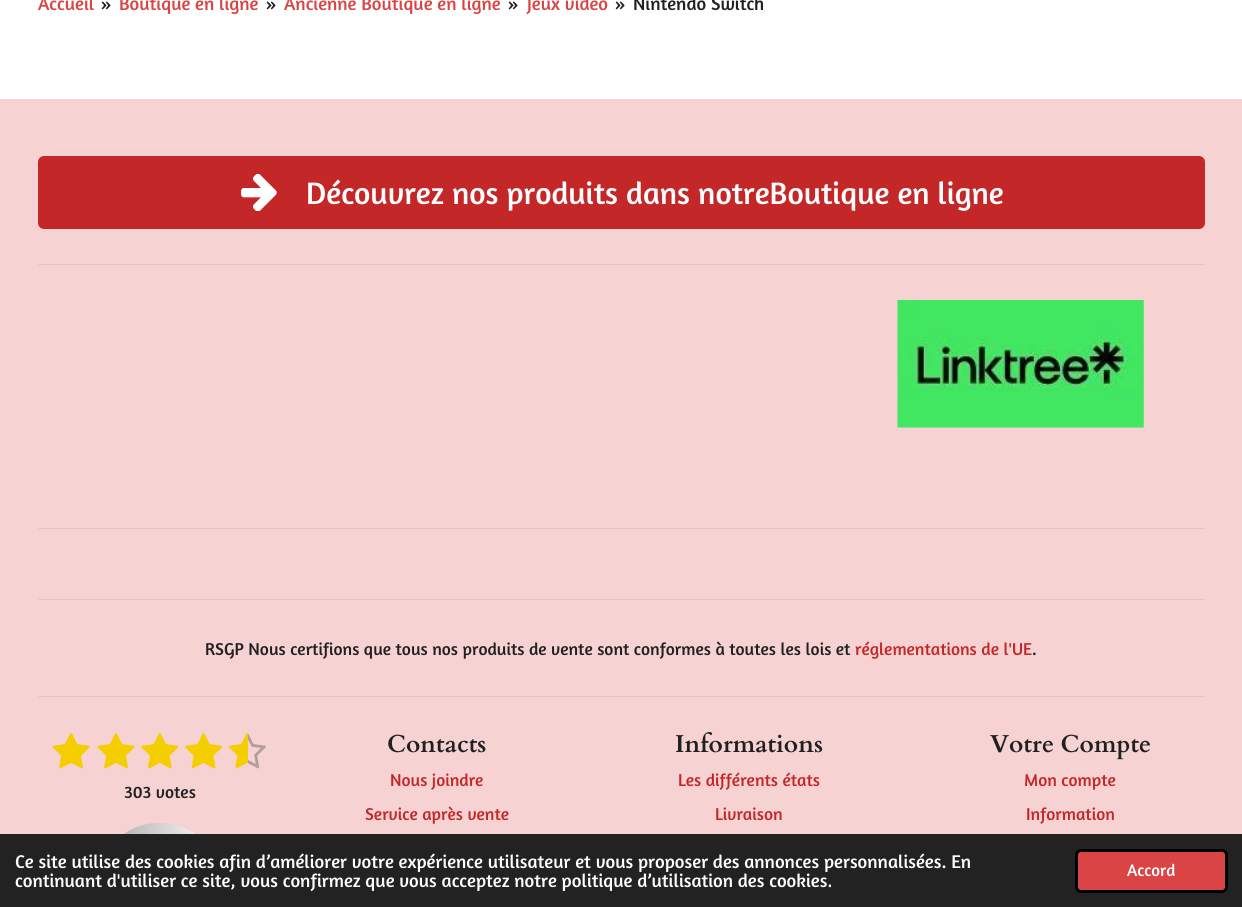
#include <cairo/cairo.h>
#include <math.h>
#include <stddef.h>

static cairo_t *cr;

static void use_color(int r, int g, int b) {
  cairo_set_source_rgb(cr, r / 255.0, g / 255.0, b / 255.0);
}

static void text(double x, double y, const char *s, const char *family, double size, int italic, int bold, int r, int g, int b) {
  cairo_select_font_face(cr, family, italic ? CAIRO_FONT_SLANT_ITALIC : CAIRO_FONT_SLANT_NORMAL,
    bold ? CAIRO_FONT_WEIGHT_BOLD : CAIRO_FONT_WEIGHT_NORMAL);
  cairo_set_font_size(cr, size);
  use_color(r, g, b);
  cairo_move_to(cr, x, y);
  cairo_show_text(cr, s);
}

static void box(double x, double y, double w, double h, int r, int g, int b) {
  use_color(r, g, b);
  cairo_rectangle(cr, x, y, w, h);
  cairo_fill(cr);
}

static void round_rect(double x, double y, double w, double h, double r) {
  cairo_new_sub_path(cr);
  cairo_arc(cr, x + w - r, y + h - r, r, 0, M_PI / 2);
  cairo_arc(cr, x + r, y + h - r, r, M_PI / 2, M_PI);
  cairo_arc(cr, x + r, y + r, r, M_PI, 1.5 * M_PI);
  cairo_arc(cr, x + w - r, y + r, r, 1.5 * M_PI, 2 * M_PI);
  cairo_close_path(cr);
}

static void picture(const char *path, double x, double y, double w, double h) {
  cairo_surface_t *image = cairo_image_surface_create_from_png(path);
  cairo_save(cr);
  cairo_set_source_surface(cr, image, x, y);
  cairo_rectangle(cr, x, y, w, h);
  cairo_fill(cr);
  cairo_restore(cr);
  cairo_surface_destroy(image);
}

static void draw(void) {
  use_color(246, 210, 210);
  cairo_paint(cr);
  box(0, 0, 1242, 99, 255, 255, 255);
  use_color(196, 39, 39);
  round_rect(38, 156, 1167, 73, 6);
  cairo_fill(cr);
  picture("img_01.png", 241, 174, 36, 37);
  box(38, 264, 1167, 1, 229, 196, 196);
  picture("img_02.png", 897, 300, 247, 128);
  box(38, 528, 1167, 1, 229, 196, 196);
  box(38, 599, 1167, 1, 229, 196, 196);
  box(38, 696, 1167, 1, 229, 196, 196);
  picture("img_03.png", 52, 733, 38, 36);
  picture("img_03.png", 97, 733, 38, 36);
  picture("img_04.png", 141, 733, 38, 36);
  picture("img_05.png", 185, 733, 38, 36);
  picture("img_06.png", 228, 733, 20, 36);
  picture("img_07.png", 248, 733, 18, 36);
  picture("img_08.png", 124, 822, 71, 12);
  box(0, 834, 1242, 73, 34, 34, 34);
  use_color(218, 68, 68);
  round_rect(1076.5, 850.5, 150, 41, 4.5);
  cairo_fill_preserve(cr);
  use_color(0, 0, 0);
  cairo_set_line_width(cr, 3);
  cairo_stroke(cr);
  text(38, 10, "Accueil", "Amaranth", 18.75, 0, 0, 218, 68, 68);
  text(101, 10, "»", "Amaranth", 18.75, 0, 0, 32, 32, 32);
  text(119, 10, "Boutique en ligne", "Amaranth", 18.75, 0, 0, 218, 68, 68);
  text(266, 10, "»", "Amaranth", 18.75, 0, 0, 32, 32, 32);
  text(284, 10, "Ancienne Boutique en ligne", "Amaranth", 18.75, 0, 0, 218, 68, 68);
  text(508, 10, "»", "Amaranth", 18.75, 0, 0, 32, 32, 32);
  text(527, 10, "Jeux vidéo", "Amaranth", 18.75, 0, 0, 218, 68, 68);
  text(615, 10, "»", "Amaranth", 18.75, 0, 0, 32, 32, 32);
  text(633, 10, "Nintendo Switch", "Amaranth", 18.75, 0, 0, 32, 32, 32);
  text(306, 204, "Découvrez nos produits dans notreBoutique en ligne", "Amaranth", 31.5, 0, 0, 255, 255, 255);
  text(205, 655, "RSGP Nous certifions que tous nos produits de vente sont conformes à toutes les lois et", "Amaranth", 17.5, 0, 0, 32, 32, 32);
  text(855, 655, "réglementations de l'UE", "Amaranth", 17.5, 0, 0, 196, 39, 39);
  text(1032, 655, ".", "Amaranth", 17.5, 0, 0, 32, 32, 32);
  text(124, 798, "303 votes", "Amaranth", 17.5, 0, 0, 32, 32, 32);
  text(387, 752, "Contacts", "Cardo", 24.5, 0, 1, 32, 32, 32);
  text(390, 786, "Nous joindre", "Amaranth", 17.5, 0, 0, 196, 39, 39);
  text(365, 820, "Service après vente", "Amaranth", 17.5, 0, 0, 196, 39, 39);
  text(675, 752, "Informations", "Cardo", 24.5, 0, 1, 32, 32, 32);
  text(678, 786, "Les différents états", "Amaranth", 17.5, 0, 0, 196, 39, 39);
  text(715, 820, "Livraison", "Amaranth", 17.5, 0, 0, 196, 39, 39);
  text(990, 752, "Votre Compte", "Cardo", 24.5, 0, 1, 32, 32, 32);
  text(1024, 786, "Mon compte", "Amaranth", 17.5, 0, 0, 196, 39, 39);
  text(1026, 820, "Information", "Amaranth", 17.5, 0, 0, 196, 39, 39);
  text(15, 868, "Ce site utilise des cookies afin d’améliorer votre expérience utilisateur et vous proposer des annonces personnalisées. En", "Amaranth", 18.75, 0, 0, 255, 255, 255);
  text(15, 887, "continuant d'utiliser ce site, vous confirmez que vous acceptez notre politique d’utilisation des cookies.", "Amaranth", 18.75, 0, 0, 255, 255, 255);
  text(1127, 876, "Accord", "Amaranth", 17, 0, 0, 255, 255, 255);
}

int main(void) {
  cairo_surface_t *surface = cairo_image_surface_create(CAIRO_FORMAT_RGB24, 1242, 907);
  cr = cairo_create(surface);
  cairo_font_options_t *options = cairo_font_options_create();
  cairo_font_options_set_hint_metrics(options, CAIRO_HINT_METRICS_OFF);
  cairo_font_options_set_hint_style(options, CAIRO_HINT_STYLE_NONE);
  cairo_set_font_options(cr, options);
  cairo_set_miter_limit(cr, 4);
  draw();
  cairo_surface_write_to_png(surface, "out.png");
  cairo_font_options_destroy(options);
  cairo_destroy(cr);
  cairo_surface_destroy(surface);
  return 0;
}
